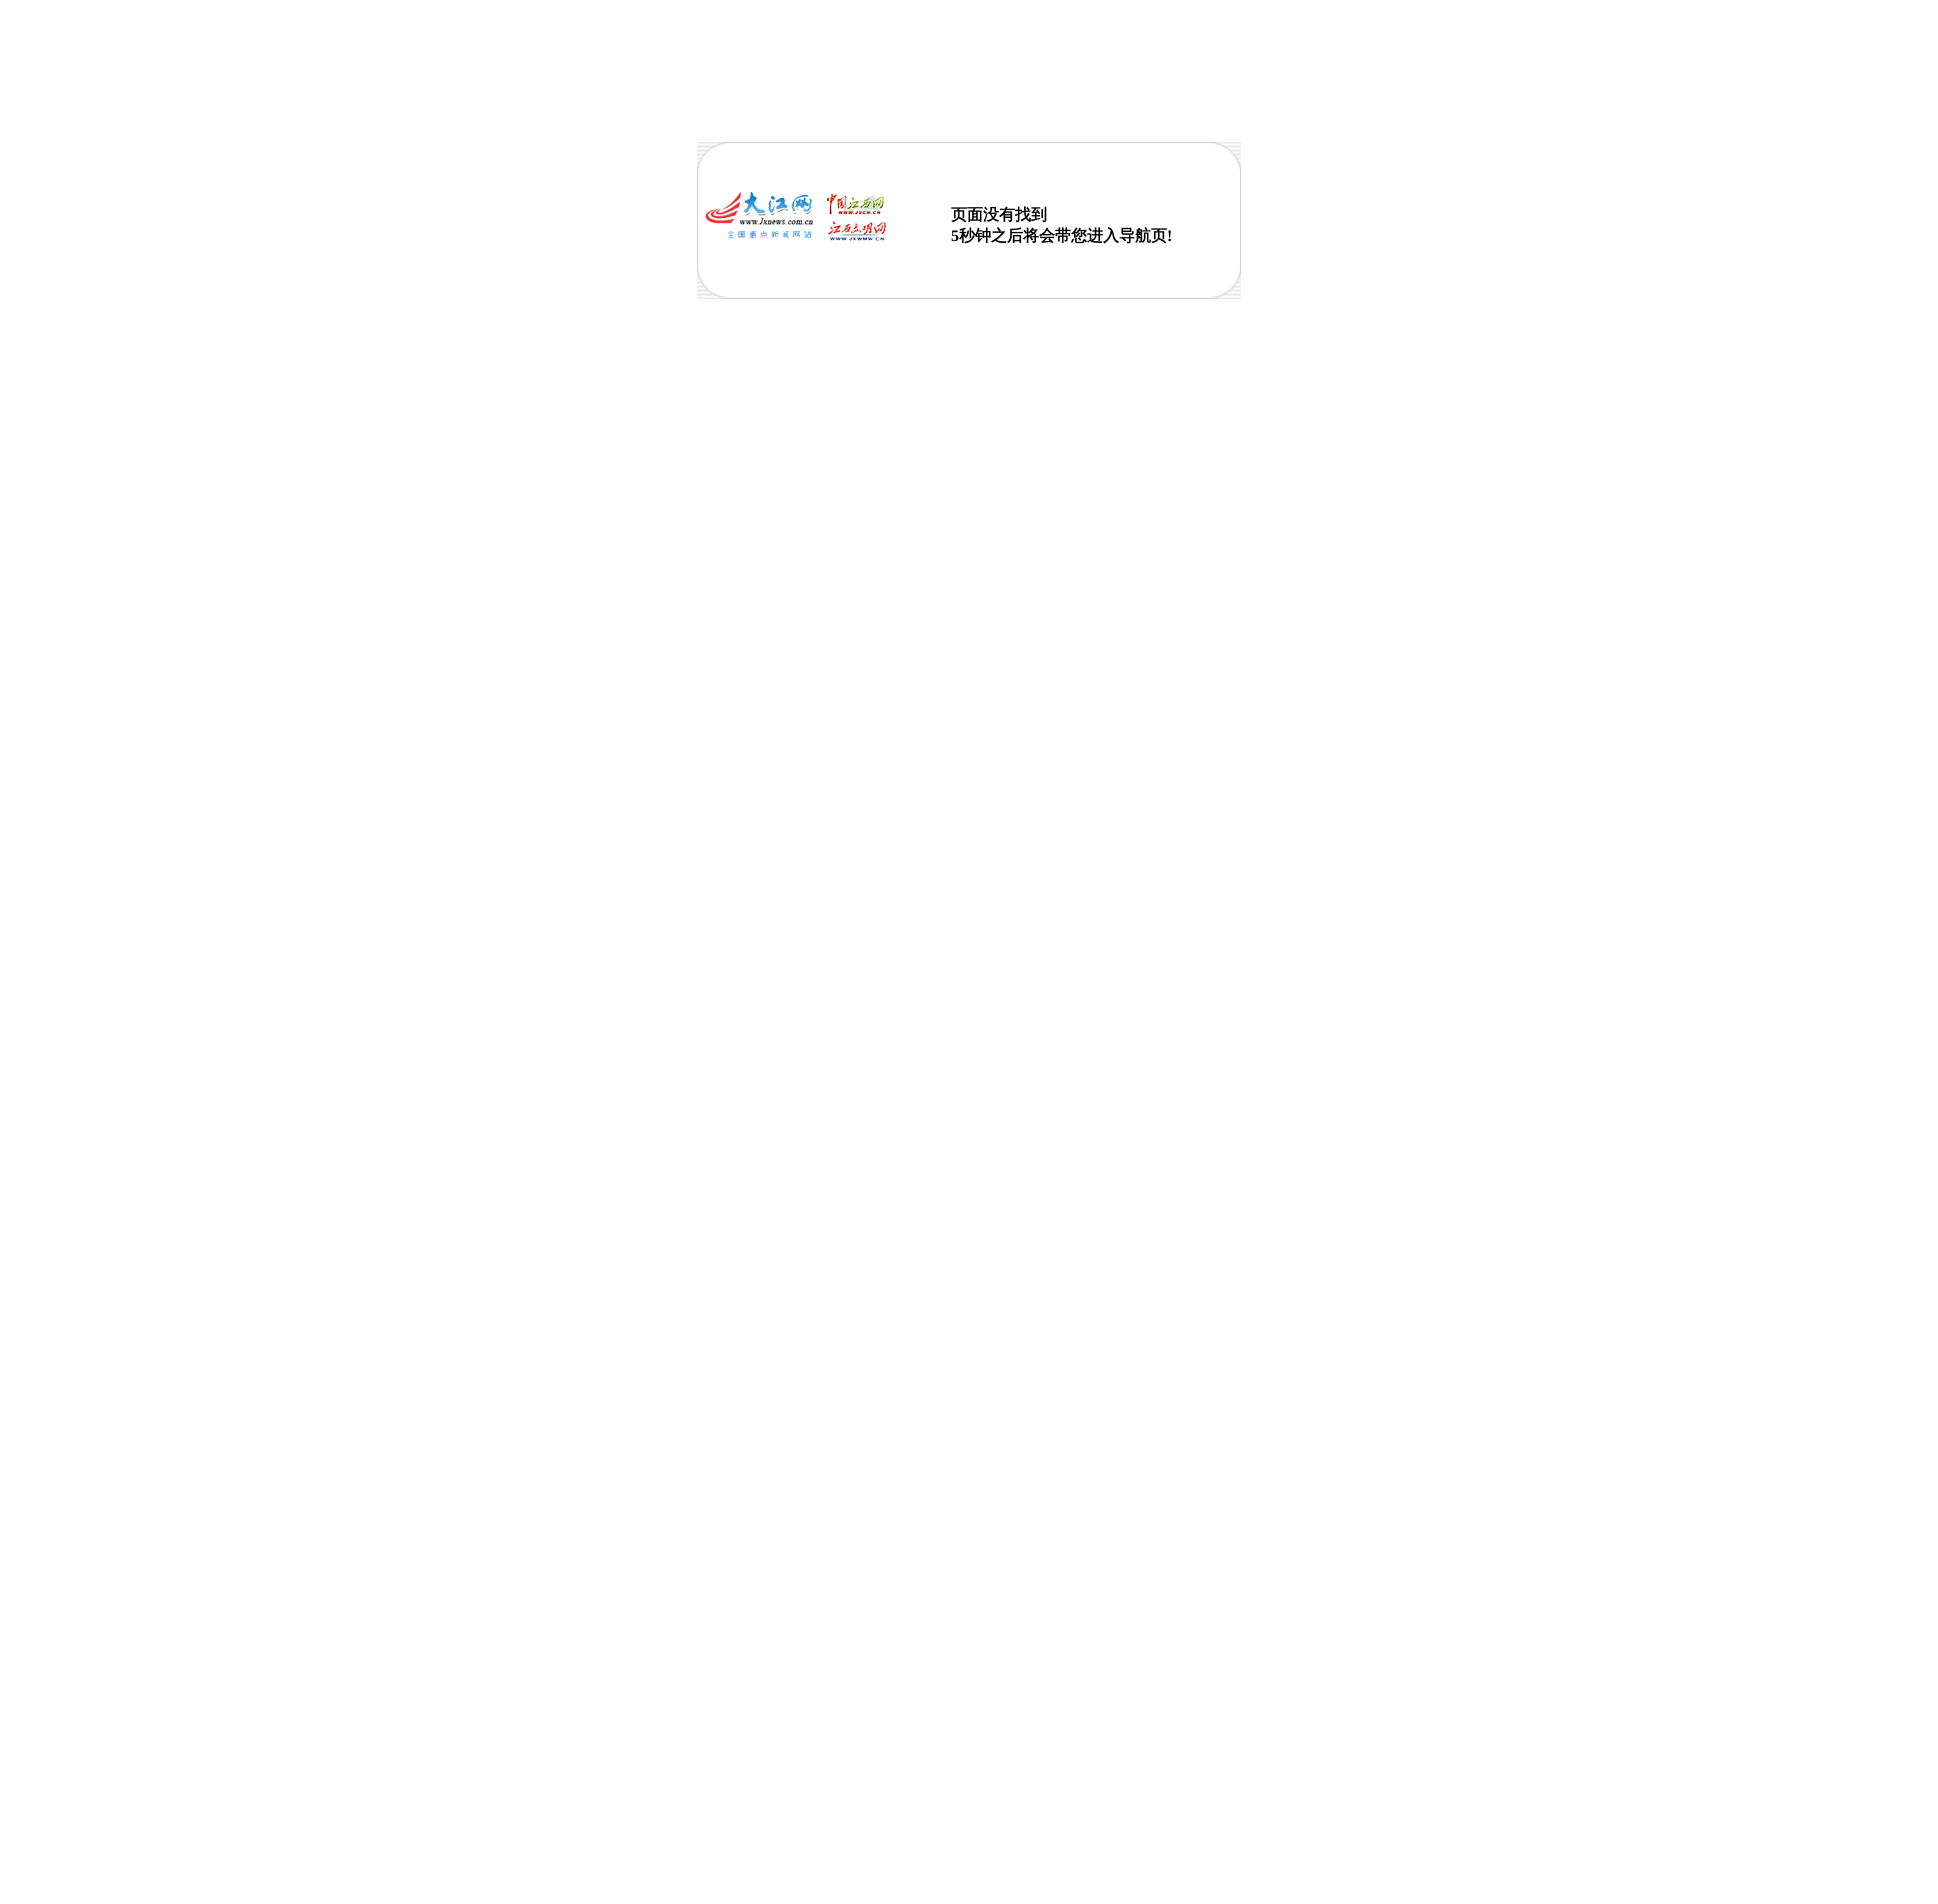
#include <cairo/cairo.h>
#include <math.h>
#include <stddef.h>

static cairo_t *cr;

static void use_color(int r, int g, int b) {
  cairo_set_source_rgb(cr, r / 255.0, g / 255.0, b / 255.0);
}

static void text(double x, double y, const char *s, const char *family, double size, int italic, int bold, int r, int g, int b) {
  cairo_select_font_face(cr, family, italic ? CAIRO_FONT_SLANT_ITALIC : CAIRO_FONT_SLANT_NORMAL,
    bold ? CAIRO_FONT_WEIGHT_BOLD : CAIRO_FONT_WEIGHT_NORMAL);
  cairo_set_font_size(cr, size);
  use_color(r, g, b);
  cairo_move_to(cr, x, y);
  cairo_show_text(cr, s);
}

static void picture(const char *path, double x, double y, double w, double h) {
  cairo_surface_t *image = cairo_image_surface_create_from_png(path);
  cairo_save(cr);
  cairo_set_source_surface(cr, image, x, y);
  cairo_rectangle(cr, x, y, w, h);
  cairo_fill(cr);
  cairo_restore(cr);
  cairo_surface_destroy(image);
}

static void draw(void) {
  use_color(255, 255, 255);
  cairo_paint(cr);
  picture("img_01.png", 697, 142, 544, 157);
  text(951, 220, "页面没有找到", "WenQuanYi Zen Hei", 16, 0, 1, 0, 0, 0);
  text(951, 241, "5", "Liberation Serif", 16, 0, 1, 0, 0, 0);
  text(959, 241, "秒钟之后将会带您进入导航页", "WenQuanYi Zen Hei", 16, 0, 1, 0, 0, 0);
  text(1167, 241, "!", "Liberation Serif", 16, 0, 1, 0, 0, 0);
}

int main(void) {
  cairo_surface_t *surface = cairo_image_surface_create(CAIRO_FORMAT_RGB24, 1938, 1904);
  cr = cairo_create(surface);
  cairo_font_options_t *options = cairo_font_options_create();
  cairo_font_options_set_hint_metrics(options, CAIRO_HINT_METRICS_OFF);
  cairo_font_options_set_hint_style(options, CAIRO_HINT_STYLE_NONE);
  cairo_set_font_options(cr, options);
  cairo_set_miter_limit(cr, 4);
  draw();
  cairo_surface_write_to_png(surface, "out.png");
  cairo_font_options_destroy(options);
  cairo_destroy(cr);
  cairo_surface_destroy(surface);
  return 0;
}
